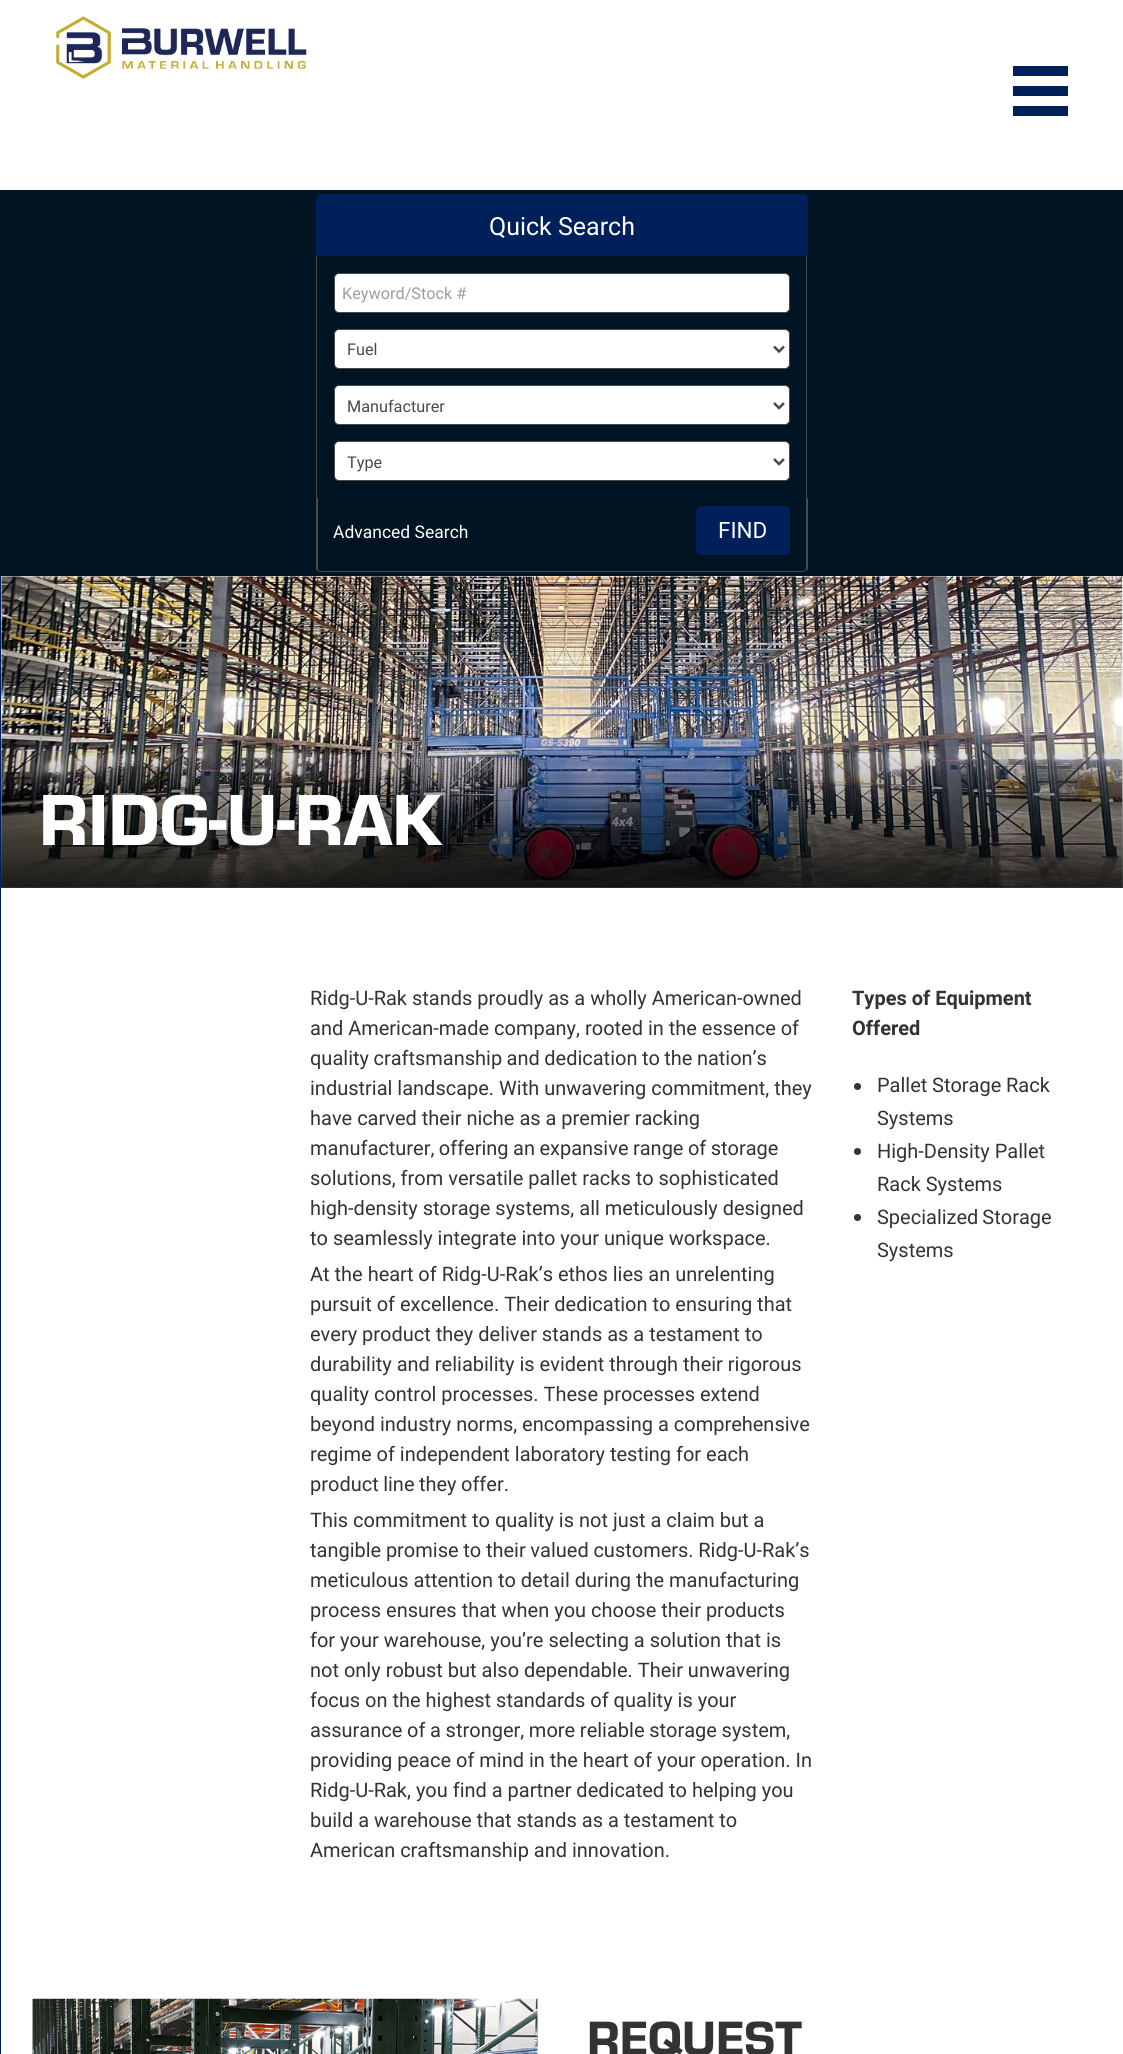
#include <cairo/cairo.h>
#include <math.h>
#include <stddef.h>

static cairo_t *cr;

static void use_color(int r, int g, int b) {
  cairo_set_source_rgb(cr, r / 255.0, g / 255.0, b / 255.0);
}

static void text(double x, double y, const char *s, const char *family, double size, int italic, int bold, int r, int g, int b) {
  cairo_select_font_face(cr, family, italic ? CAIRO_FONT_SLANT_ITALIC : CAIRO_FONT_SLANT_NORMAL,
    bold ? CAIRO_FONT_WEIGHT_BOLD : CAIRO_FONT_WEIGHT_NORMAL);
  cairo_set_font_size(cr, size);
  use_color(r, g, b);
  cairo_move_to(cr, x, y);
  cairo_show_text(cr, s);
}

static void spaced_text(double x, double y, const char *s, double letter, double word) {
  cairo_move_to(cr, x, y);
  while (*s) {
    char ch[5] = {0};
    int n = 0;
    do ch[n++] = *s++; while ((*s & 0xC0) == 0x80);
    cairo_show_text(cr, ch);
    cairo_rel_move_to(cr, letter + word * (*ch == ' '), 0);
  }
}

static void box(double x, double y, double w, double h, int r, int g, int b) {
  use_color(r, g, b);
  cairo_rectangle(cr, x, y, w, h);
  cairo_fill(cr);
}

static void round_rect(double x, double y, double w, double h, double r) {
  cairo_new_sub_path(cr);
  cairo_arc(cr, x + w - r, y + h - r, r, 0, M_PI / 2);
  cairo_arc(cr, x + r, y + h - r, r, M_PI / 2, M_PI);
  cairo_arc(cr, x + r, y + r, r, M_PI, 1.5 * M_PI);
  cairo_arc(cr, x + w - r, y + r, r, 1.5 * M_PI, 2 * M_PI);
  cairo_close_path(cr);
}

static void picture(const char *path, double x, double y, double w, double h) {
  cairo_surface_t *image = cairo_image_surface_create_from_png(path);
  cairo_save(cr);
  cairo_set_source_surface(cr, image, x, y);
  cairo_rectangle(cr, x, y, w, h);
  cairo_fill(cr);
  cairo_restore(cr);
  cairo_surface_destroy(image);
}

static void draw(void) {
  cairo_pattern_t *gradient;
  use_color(255, 255, 255);
  cairo_paint(cr);
  picture("img_01.png", 56, 16, 251, 63);
  box(1013, 86, 55, 10, 0, 32, 91);
  box(1013, 66, 55, 10, 0, 32, 91);
  box(1013, 106, 55, 10, 0, 32, 91);
  box(0, 190, 1123, 386, 0, 20, 35);
  use_color(0, 32, 91);
  cairo_new_path(cr);
  cairo_move_to(cr, 321, 194);
  cairo_line_to(cr, 803, 194);
  cairo_curve_to(cr, 806, 194, 808, 196, 808, 199);
  cairo_line_to(cr, 808, 256);
  cairo_line_to(cr, 316, 256);
  cairo_line_to(cr, 316, 199);
  cairo_curve_to(cr, 316, 196, 318, 194, 321, 194);
  cairo_close_path(cr);
  cairo_fill(cr);
  box(806, 256, 1, 242, 73, 73, 73);
  box(316, 256, 1, 242, 73, 73, 73);
  use_color(255, 255, 255);
  round_rect(334.5, 273.5, 455, 39, 4.5);
  cairo_fill_preserve(cr);
  use_color(73, 73, 73);
  cairo_set_line_width(cr, 1);
  cairo_stroke(cr);
  use_color(255, 255, 255);
  round_rect(334.5, 329.5, 455, 39, 4.5);
  cairo_fill_preserve(cr);
  use_color(73, 73, 73);
  cairo_stroke(cr);
  cairo_new_path(cr);
  cairo_move_to(cr, 774, 346.5);
  cairo_line_to(cr, 779, 351.5);
  cairo_line_to(cr, 784, 346.5);
  cairo_set_line_width(cr, 2.5);
  cairo_stroke(cr);
  use_color(255, 255, 255);
  round_rect(334.5, 385.5, 455, 39, 4.5);
  cairo_fill_preserve(cr);
  use_color(73, 73, 73);
  cairo_set_line_width(cr, 1);
  cairo_stroke(cr);
  cairo_new_path(cr);
  cairo_move_to(cr, 774, 403);
  cairo_line_to(cr, 779, 408);
  cairo_line_to(cr, 784, 403);
  cairo_set_line_width(cr, 2.5);
  cairo_stroke(cr);
  use_color(255, 255, 255);
  round_rect(334.5, 441.5, 455, 39, 4.5);
  cairo_fill_preserve(cr);
  use_color(73, 73, 73);
  cairo_set_line_width(cr, 1);
  cairo_stroke(cr);
  cairo_new_path(cr);
  cairo_move_to(cr, 774, 459);
  cairo_line_to(cr, 779, 464);
  cairo_line_to(cr, 784, 459);
  cairo_set_line_width(cr, 2.5);
  cairo_stroke(cr);
  cairo_set_fill_rule(cr, CAIRO_FILL_RULE_EVEN_ODD);
  cairo_new_path(cr);
  cairo_move_to(cr, 316, 498);
  cairo_line_to(cr, 808, 498);
  cairo_line_to(cr, 808, 568);
  cairo_curve_to(cr, 808, 570, 805, 572, 802, 572);
  cairo_line_to(cr, 321, 572);
  cairo_curve_to(cr, 318, 572, 316, 570, 316, 568);
  cairo_close_path(cr);
  cairo_move_to(cr, 318, 498);
  cairo_line_to(cr, 806, 498);
  cairo_line_to(cr, 806, 568);
  cairo_curve_to(cr, 806, 570, 805, 571, 802, 571);
  cairo_line_to(cr, 321, 571);
  cairo_curve_to(cr, 319, 571, 318, 570, 318, 568);
  cairo_close_path(cr);
  cairo_fill(cr);
  use_color(0, 32, 91);
  round_rect(696, 506, 94, 49, 5);
  cairo_fill(cr);
  box(0, 576, 1, 1478, 0, 32, 91);
  picture("img_02.png", 1, 576, 1122, 312);
  gradient = cairo_pattern_create_linear(562, 576, 562, 888);
  cairo_pattern_add_color_stop_rgba(gradient, 0, 1, 0, 0, 0);
  cairo_pattern_add_color_stop_rgba(gradient, 0.5, 0, 0, 0, 0);
  cairo_pattern_add_color_stop_rgba(gradient, 1, 0, 0, 0, 0.8);
  cairo_set_source(cr, gradient);
  cairo_pattern_destroy(gradient);
  cairo_rectangle(cr, 1, 736, 1122, 152);
  cairo_fill(cr);
  use_color(51, 51, 51);
  cairo_arc(cr, 857.5, 1086.5, 3.5, 0, 2 * M_PI);
  cairo_fill(cr);
  cairo_arc(cr, 857.5, 1151.5, 3.5, 0, 2 * M_PI);
  cairo_fill(cr);
  cairo_arc(cr, 857.5, 1217.5, 3.5, 0, 2 * M_PI);
  cairo_fill(cr);
  picture("img_03.png", 32, 1998, 506, 56);
  text(489, 235, "Quick Search", "Roboto", 25, 0, 0, 255, 255, 255);
  text(342, 299, "Keyword/Stock #", "Roboto", 16.25, 0, 0, 157, 157, 157);
  text(347, 355, "Fuel", "Roboto", 16.25, 0, 0, 73, 73, 73);
  text(347, 412, "Manufacturer", "Roboto", 16.25, 0, 0, 73, 73, 73);
  text(347, 468, "Type", "Roboto", 16.25, 0, 0, 73, 73, 73);
  text(333, 538, "Advanced Search", "Roboto", 17.5, 0, 0, 255, 255, 255);
  text(718, 538, "FIND", "Roboto", 22.5, 0, 0, 255, 255, 255);
  text(39, 845, "RIDG-U-RAK", "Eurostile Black", 75, 0, 0, 255, 255, 255);
  text(310, 1005, "Ridg-U-Rak stands proudly as a wholly American-owned", "Roboto", 20, 0, 0, 51, 51, 51);
  text(310, 1035, "and American-made company, rooted in the essence of", "Roboto", 20, 0, 0, 51, 51, 51);
  spaced_text(310, 1065, "quality craftsmanship and dedication to the nation’s", 0, -0.5);
  text(310, 1095, "industrial landscape. With unwavering commitment, they", "Roboto", 20, 0, 0, 51, 51, 51);
  text(310, 1125, "have carved their niche as a premier racking", "Roboto", 20, 0, 0, 51, 51, 51);
  spaced_text(310, 1155, "manufacturer, offering an expansive range of storage", 0, -0.5);
  text(310, 1185, "solutions, from versatile pallet racks to sophisticated", "Roboto", 20, 0, 0, 51, 51, 51);
  text(310, 1215, "high-density storage systems, all meticulously designed", "Roboto", 20, 0, 0, 51, 51, 51);
  text(310, 1245, "to seamlessly integrate into your unique workspace.", "Roboto", 20, 0, 0, 51, 51, 51);
  text(310, 1281, "At the heart of Ridg-U-Rak’s ethos lies an unrelenting", "Roboto", 20, 0, 0, 51, 51, 51);
  text(310, 1311, "pursuit of excellence. Their dedication to ensuring that", "Roboto", 20, 0, 0, 51, 51, 51);
  text(310, 1341, "every product they deliver stands as a testament to", "Roboto", 20, 0, 0, 51, 51, 51);
  text(310, 1371, "durability and reliability is evident through their rigorous", "Roboto", 20, 0, 0, 51, 51, 51);
  text(310, 1401, "quality control processes. These processes extend", "Roboto", 20, 0, 0, 51, 51, 51);
  text(310, 1431, "beyond industry norms, encompassing a comprehensive", "Roboto", 20, 0, 0, 51, 51, 51);
  text(310, 1461, "regime of independent laboratory testing for each", "Roboto", 20, 0, 0, 51, 51, 51);
  spaced_text(310, 1491, "product line they offer.", 0, -0.5);
  text(310, 1527, "This commitment to quality is not just a claim but a", "Roboto", 20, 0, 0, 51, 51, 51);
  spaced_text(310, 1557, "tangible promise to their valued customers. Ridg-U-Rak’s", 0, -0.25);
  text(310, 1587, "meticulous attention to detail during the manufacturing", "Roboto", 20, 0, 0, 51, 51, 51);
  text(310, 1617, "process ensures that when you choose their products", "Roboto", 20, 0, 0, 51, 51, 51);
  text(310, 1647, "for your warehouse, you’re selecting a solution that is", "Roboto", 20, 0, 0, 51, 51, 51);
  text(310, 1677, "not only robust but also dependable. Their unwavering", "Roboto", 20, 0, 0, 51, 51, 51);
  text(310, 1707, "focus on the highest standards of quality is your", "Roboto", 20, 0, 0, 51, 51, 51);
  spaced_text(310, 1737, "assurance of a stronger, more reliable storage system,", 0, -0.25);
  text(310, 1767, "providing peace of mind in the heart of your operation. In", "Roboto", 20, 0, 0, 51, 51, 51);
  text(310, 1797, "Ridg-U-Rak, you find a partner dedicated to helping you", "Roboto", 20, 0, 0, 51, 51, 51);
  text(310, 1827, "build a warehouse that stands as a testament to", "Roboto", 20, 0, 0, 51, 51, 51);
  text(310, 1857, "American craftsmanship and innovation.", "Roboto", 20, 0, 0, 51, 51, 51);
  text(852, 1005, "Types of Equipment", "Roboto", 20, 0, 1, 51, 51, 51);
  text(852, 1035, "Offered", "Roboto", 20, 0, 1, 51, 51, 51);
  cairo_select_font_face(cr, "Roboto", CAIRO_FONT_SLANT_NORMAL, CAIRO_FONT_WEIGHT_NORMAL);
  spaced_text(877, 1092, "Pallet Storage Rack", 0, -0.25);
  text(877, 1125, "Systems", "Roboto", 20, 0, 0, 51, 51, 51);
  text(877, 1158, "High-Density Pallet", "Roboto", 20, 0, 0, 51, 51, 51);
  text(877, 1191, "Rack Systems", "Roboto", 20, 0, 0, 51, 51, 51);
  spaced_text(877, 1224, "Specialized Storage", 0, -1);
  text(877, 1257, "Systems", "Roboto", 20, 0, 0, 51, 51, 51);
  text(587, 2055, "REQUEST", "Eurostile Black", 50, 0, 0, 51, 51, 51);
}

int main(void) {
  cairo_surface_t *surface = cairo_image_surface_create(CAIRO_FORMAT_RGB24, 1123, 2054);
  cr = cairo_create(surface);
  cairo_font_options_t *options = cairo_font_options_create();
  cairo_font_options_set_hint_metrics(options, CAIRO_HINT_METRICS_OFF);
  cairo_font_options_set_hint_style(options, CAIRO_HINT_STYLE_NONE);
  cairo_set_font_options(cr, options);
  cairo_set_miter_limit(cr, 4);
  draw();
  cairo_surface_write_to_png(surface, "out.png");
  cairo_font_options_destroy(options);
  cairo_destroy(cr);
  cairo_surface_destroy(surface);
  return 0;
}
